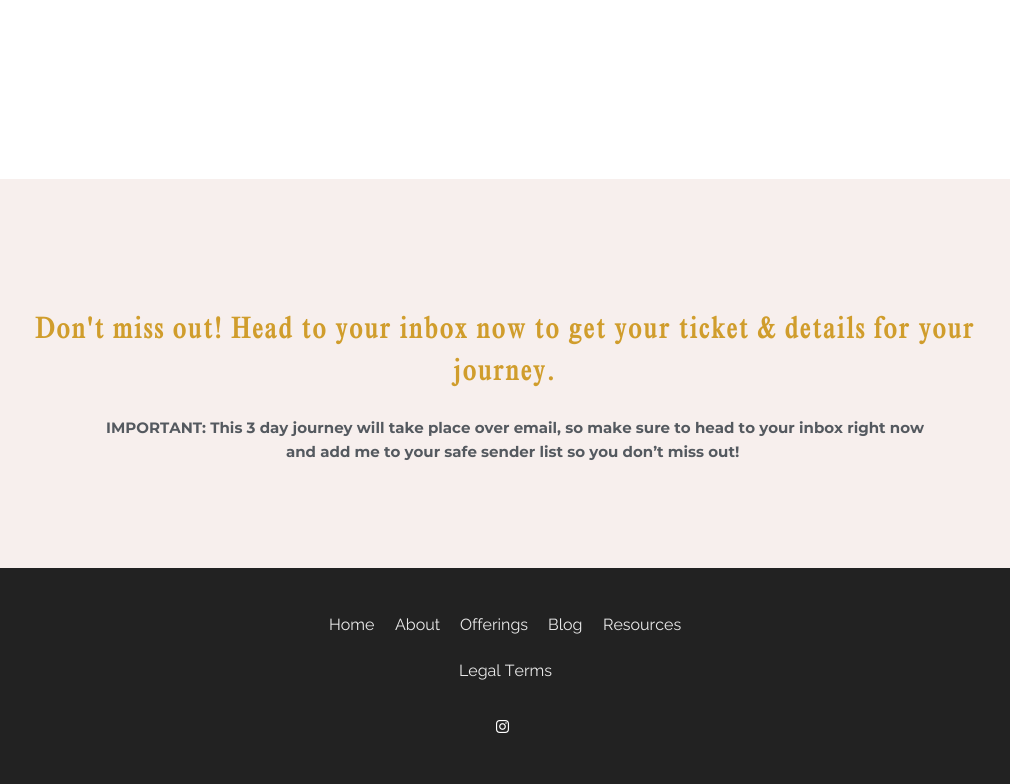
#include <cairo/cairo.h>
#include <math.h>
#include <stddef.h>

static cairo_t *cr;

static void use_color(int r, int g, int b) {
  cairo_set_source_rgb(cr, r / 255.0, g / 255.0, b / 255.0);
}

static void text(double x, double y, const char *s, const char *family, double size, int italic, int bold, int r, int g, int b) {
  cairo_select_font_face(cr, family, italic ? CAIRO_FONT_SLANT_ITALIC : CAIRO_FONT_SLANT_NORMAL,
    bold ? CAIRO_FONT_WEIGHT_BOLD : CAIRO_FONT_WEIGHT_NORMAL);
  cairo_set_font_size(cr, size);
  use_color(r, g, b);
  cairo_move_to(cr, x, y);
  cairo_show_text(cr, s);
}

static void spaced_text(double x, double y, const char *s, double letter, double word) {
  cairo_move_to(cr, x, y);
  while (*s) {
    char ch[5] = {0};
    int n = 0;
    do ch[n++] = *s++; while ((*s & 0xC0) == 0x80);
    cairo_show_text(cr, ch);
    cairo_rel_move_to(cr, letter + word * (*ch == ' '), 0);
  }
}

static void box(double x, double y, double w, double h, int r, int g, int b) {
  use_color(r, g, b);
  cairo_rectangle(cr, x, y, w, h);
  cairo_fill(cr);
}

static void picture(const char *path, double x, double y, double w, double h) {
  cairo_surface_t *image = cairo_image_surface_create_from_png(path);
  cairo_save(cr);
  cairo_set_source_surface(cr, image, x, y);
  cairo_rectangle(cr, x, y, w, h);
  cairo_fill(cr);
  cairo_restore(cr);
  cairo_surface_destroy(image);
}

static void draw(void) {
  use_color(255, 255, 255);
  cairo_paint(cr);
  box(0, 179, 1010, 389, 247, 239, 237);
  box(0, 568, 1010, 216, 34, 34, 34);
  picture("img_01.png", 496, 720, 14, 13);
  cairo_select_font_face(cr, "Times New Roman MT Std", CAIRO_FONT_SLANT_NORMAL, CAIRO_FONT_WEIGHT_BOLD);
  cairo_set_font_size(cr, 30);
  use_color(208, 157, 44);
  spaced_text(35, 338, "Don't miss out! Head to your inbox now to get your ticket & details for your", 1.9, 0);
  spaced_text(453, 380, "journey.", 1.9, 0);
  text(106, 433, "IMPORTANT: This 3 day journey will take place over email, so make sure to head to your inbox right now", "Montserrat", 15, 0, 1, 84, 89, 95);
  text(286, 457, "and add me to your safe sender list so you don’t miss out!", "Montserrat", 15, 0, 1, 84, 89, 95);
  text(329, 630, "Home", "Raleway Thin", 16, 0, 0, 234, 234, 234);
  text(395, 630, "About", "Raleway Thin", 16, 0, 0, 234, 234, 234);
  text(460, 630, "Offerings", "Raleway Thin", 16, 0, 0, 234, 234, 234);
  text(548, 630, "Blog", "Raleway Thin", 16, 0, 0, 234, 234, 234);
  text(603, 630, "Resources", "Raleway Thin", 16, 0, 0, 234, 234, 234);
  text(459, 676, "Legal Terms", "Raleway Thin", 16, 0, 0, 234, 234, 234);
}

int main(void) {
  cairo_surface_t *surface = cairo_image_surface_create(CAIRO_FORMAT_RGB24, 1010, 784);
  cr = cairo_create(surface);
  cairo_font_options_t *options = cairo_font_options_create();
  cairo_font_options_set_hint_metrics(options, CAIRO_HINT_METRICS_OFF);
  cairo_font_options_set_hint_style(options, CAIRO_HINT_STYLE_NONE);
  cairo_set_font_options(cr, options);
  cairo_set_miter_limit(cr, 4);
  draw();
  cairo_surface_write_to_png(surface, "out.png");
  cairo_font_options_destroy(options);
  cairo_destroy(cr);
  cairo_surface_destroy(surface);
  return 0;
}
